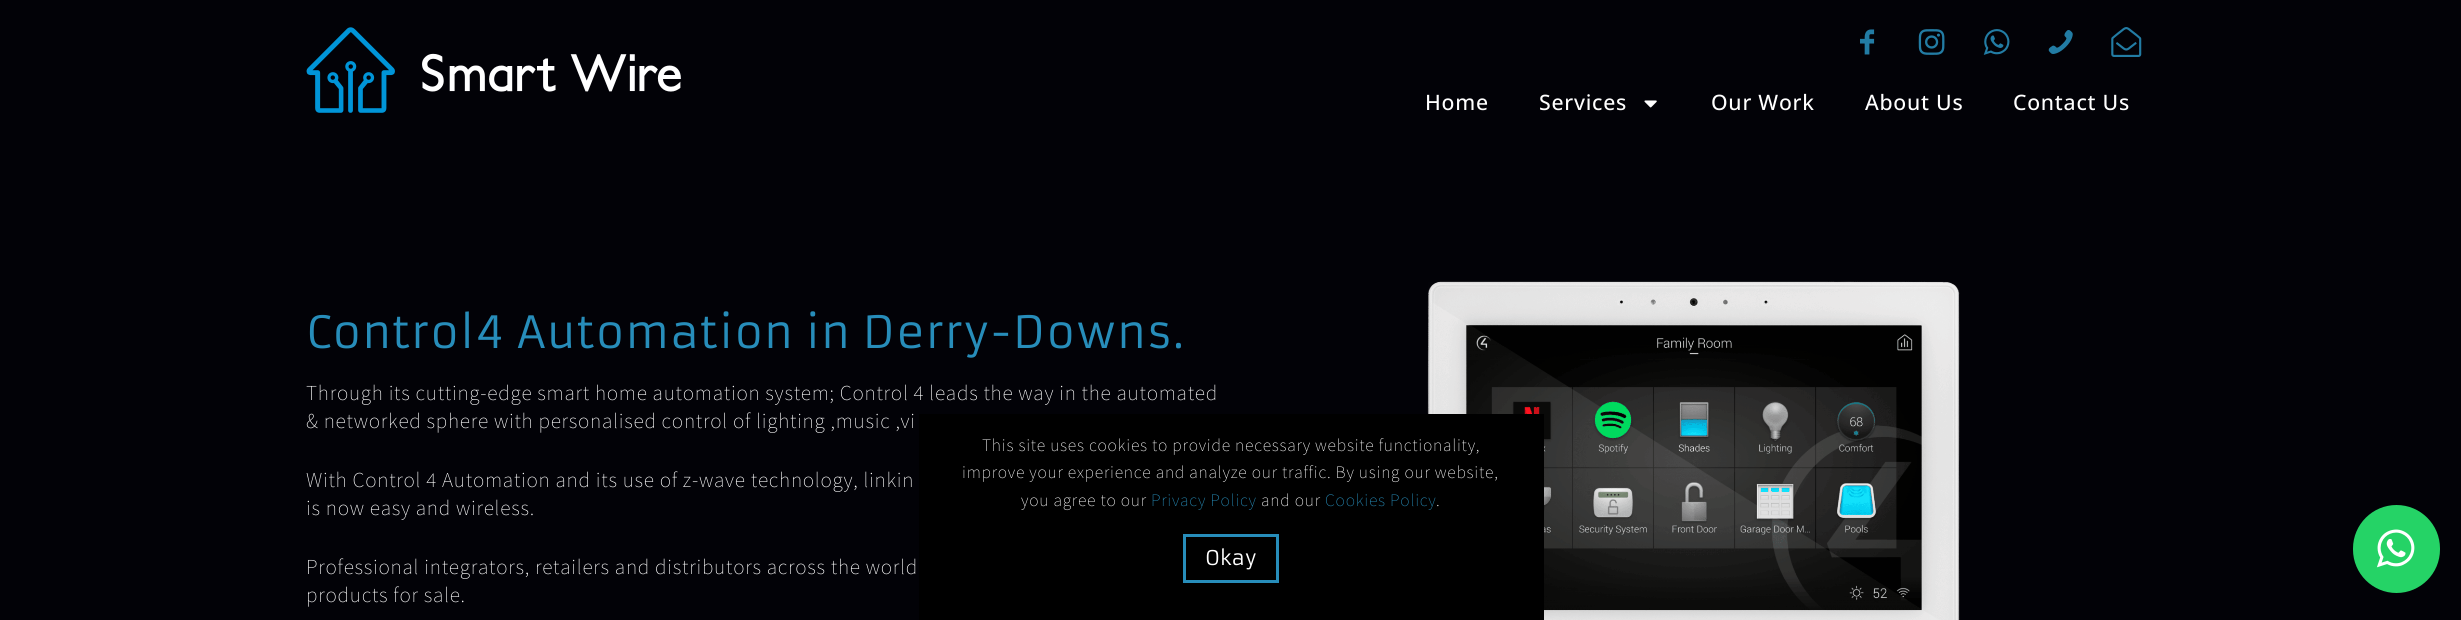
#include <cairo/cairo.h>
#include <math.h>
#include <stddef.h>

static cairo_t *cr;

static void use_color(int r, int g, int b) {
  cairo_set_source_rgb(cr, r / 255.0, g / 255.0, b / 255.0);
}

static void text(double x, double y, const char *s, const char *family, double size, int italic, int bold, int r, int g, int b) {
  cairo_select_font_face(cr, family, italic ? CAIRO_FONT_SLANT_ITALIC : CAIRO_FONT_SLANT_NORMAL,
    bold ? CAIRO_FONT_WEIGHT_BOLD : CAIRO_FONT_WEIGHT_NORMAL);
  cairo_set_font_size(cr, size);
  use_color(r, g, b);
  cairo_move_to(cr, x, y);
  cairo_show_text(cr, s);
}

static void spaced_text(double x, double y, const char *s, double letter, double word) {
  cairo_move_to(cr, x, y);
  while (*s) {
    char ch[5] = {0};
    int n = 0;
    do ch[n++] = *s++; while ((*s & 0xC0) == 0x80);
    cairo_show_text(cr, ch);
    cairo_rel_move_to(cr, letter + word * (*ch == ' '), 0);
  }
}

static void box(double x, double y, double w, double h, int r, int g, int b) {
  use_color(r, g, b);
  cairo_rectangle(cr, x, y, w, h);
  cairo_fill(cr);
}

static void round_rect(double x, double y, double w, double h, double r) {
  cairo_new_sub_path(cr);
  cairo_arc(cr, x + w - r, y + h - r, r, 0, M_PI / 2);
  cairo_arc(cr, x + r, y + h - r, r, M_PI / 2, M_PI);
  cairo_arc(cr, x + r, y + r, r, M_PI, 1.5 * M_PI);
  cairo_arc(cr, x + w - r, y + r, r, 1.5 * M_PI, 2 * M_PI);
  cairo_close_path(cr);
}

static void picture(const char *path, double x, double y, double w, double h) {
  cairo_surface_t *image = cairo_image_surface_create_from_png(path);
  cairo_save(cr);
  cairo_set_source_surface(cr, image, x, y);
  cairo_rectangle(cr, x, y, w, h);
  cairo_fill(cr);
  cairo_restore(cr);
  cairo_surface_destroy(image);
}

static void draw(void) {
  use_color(2, 2, 7);
  cairo_paint(cr);
  picture("img_01.png", 306, 27, 375, 86);
  picture("img_02.png", 1860, 29, 15, 26);
  picture("img_03.png", 1918, 29, 27, 26);
  picture("img_04.png", 1983, 29, 27, 26);
  picture("img_05.png", 2048, 30, 25, 24);
  picture("img_06.png", 2111, 27, 31, 30);
  picture("img_07.png", 1644, 100, 13, 8);
  picture("img_08.png", 1427, 281, 533, 339);
  box(919, 414, 625, 206, 0, 0, 0);
  cairo_rectangle(cr, 1184.5, 535.5, 93, 46);
  use_color(39, 141, 186);
  cairo_set_line_width(cr, 3);
  cairo_stroke(cr);
  use_color(37, 211, 102);
  round_rect(2353, 505, 87, 88, 43.5);
  cairo_fill(cr);
  picture("img_09.png", 2376, 529, 39, 39);
  cairo_select_font_face(cr, "Open Sans Medium", CAIRO_FONT_SLANT_NORMAL, CAIRO_FONT_WEIGHT_NORMAL);
  cairo_set_font_size(cr, 21.25);
  use_color(255, 255, 255);
  spaced_text(1425, 110, "Home", 0.75, 0);
  spaced_text(1539, 110, "Services", 0.75, 0);
  spaced_text(1711, 110, "Our Work", 0.75, 0);
  spaced_text(1865, 110, "About Us", 0.75, 0);
  spaced_text(2013, 110, "Contact Us", 0.75, 0);
  cairo_select_font_face(cr, "Armata", CAIRO_FONT_SLANT_NORMAL, CAIRO_FONT_WEIGHT_NORMAL);
  cairo_set_font_size(cr, 43.75);
  use_color(39, 141, 186);
  spaced_text(306, 348, "Control4 Automation in Derry-Downs.", 0.75, 0);
  cairo_select_font_face(cr, "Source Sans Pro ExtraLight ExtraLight", CAIRO_FONT_SLANT_NORMAL, CAIRO_FONT_WEIGHT_NORMAL);
  cairo_set_font_size(cr, 21.25);
  use_color(255, 255, 255);
  spaced_text(306, 400, "Through its cutting-edge smart home automation system; Control 4 leads the way in the automated", 0.75, 0);
  spaced_text(306, 428, "& networked sphere with personalised control of lighting ,music ,vi", 0.75, 0);
  spaced_text(306, 487, "With Control 4 Automation and its use of z-wave technology, linkin", 0.75, 0);
  spaced_text(306, 515, "is now easy and wireless.", 0.75, 0);
  spaced_text(306, 574, "Professional integrators, retailers and distributors across the world", 0.75, 0);
  spaced_text(306, 602, "products for sale.", 0.75, 0);
  cairo_set_font_size(cr, 17.5);
  spaced_text(982, 451, "This site uses cookies to provide necessary website functionality,", 0.75, 0);
  spaced_text(962, 478, "improve your experience and analyze our traffic. By using our website,", 0.75, 0);
  spaced_text(1021, 506, "you agree to our", 0.75, 0);
  use_color(39, 141, 186);
  spaced_text(1151, 506, "Privacy Policy", 0.75, 0);
  use_color(255, 255, 255);
  spaced_text(1261, 506, "and our", 0.75, 0);
  use_color(39, 141, 186);
  spaced_text(1325, 506, "Cookies Policy", 0.75, 0);
  use_color(255, 255, 255);
  spaced_text(1436, 506, ".", 0.75, 0);
  text(1205, 565, "Okay", "Armata", 20, 0, 0, 255, 255, 255);
}

int main(void) {
  cairo_surface_t *surface = cairo_image_surface_create(CAIRO_FORMAT_RGB24, 2461, 620);
  cr = cairo_create(surface);
  cairo_font_options_t *options = cairo_font_options_create();
  cairo_font_options_set_hint_metrics(options, CAIRO_HINT_METRICS_OFF);
  cairo_font_options_set_hint_style(options, CAIRO_HINT_STYLE_NONE);
  cairo_set_font_options(cr, options);
  cairo_set_miter_limit(cr, 4);
  draw();
  cairo_surface_write_to_png(surface, "out.png");
  cairo_font_options_destroy(options);
  cairo_destroy(cr);
  cairo_surface_destroy(surface);
  return 0;
}
